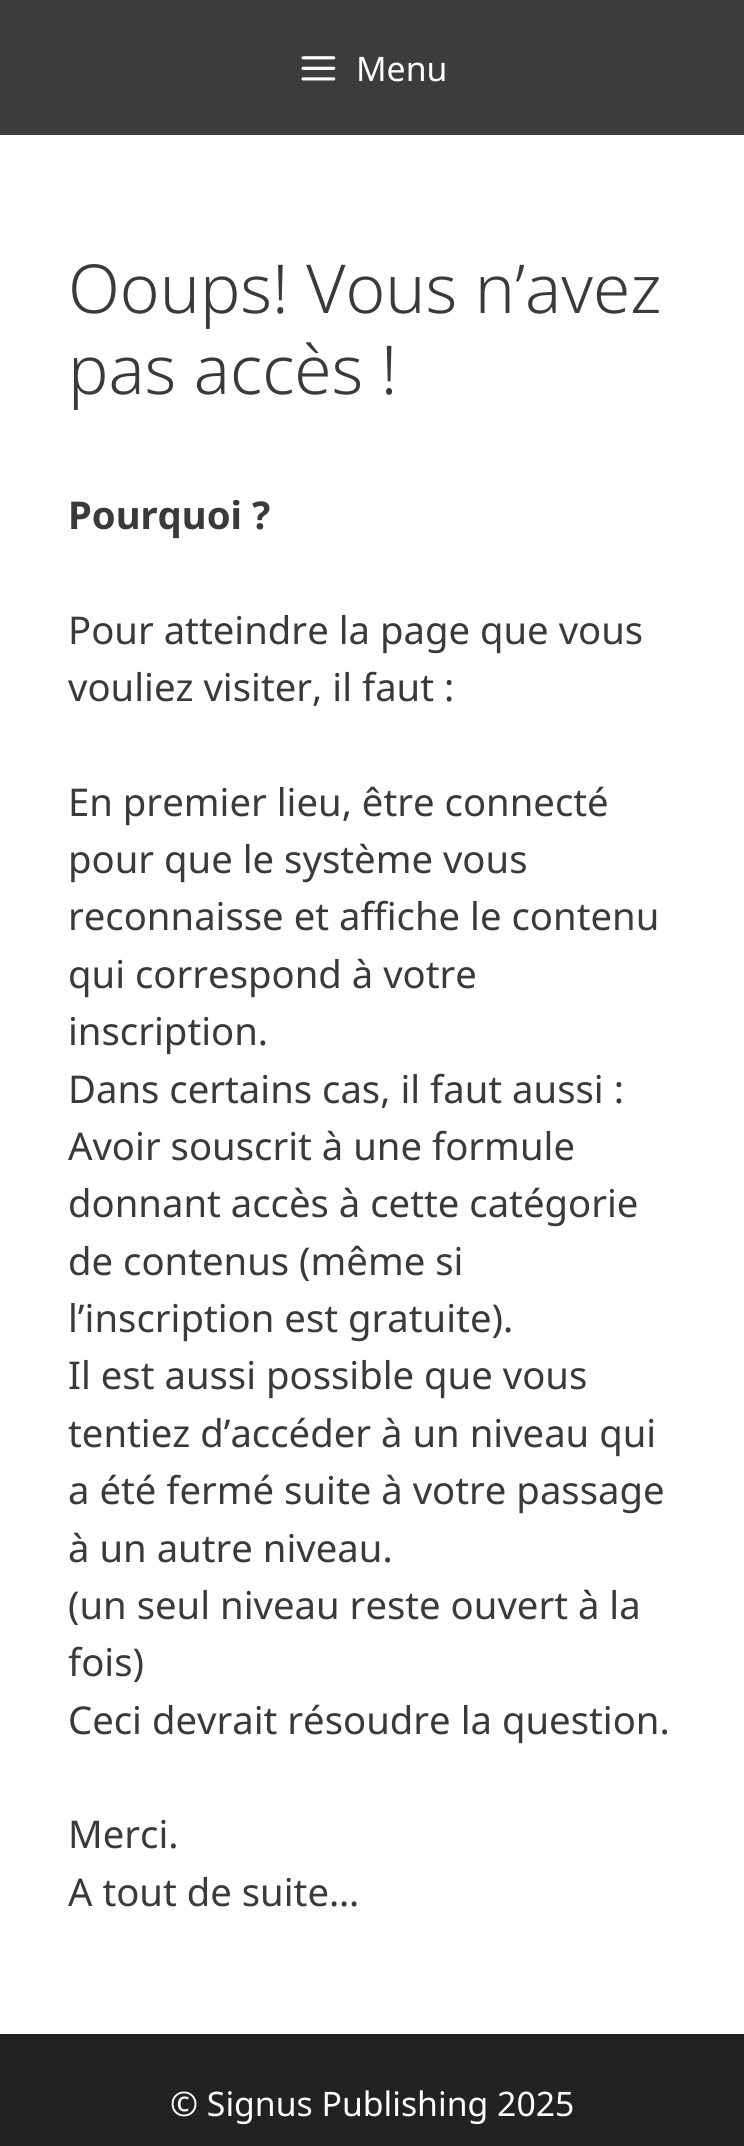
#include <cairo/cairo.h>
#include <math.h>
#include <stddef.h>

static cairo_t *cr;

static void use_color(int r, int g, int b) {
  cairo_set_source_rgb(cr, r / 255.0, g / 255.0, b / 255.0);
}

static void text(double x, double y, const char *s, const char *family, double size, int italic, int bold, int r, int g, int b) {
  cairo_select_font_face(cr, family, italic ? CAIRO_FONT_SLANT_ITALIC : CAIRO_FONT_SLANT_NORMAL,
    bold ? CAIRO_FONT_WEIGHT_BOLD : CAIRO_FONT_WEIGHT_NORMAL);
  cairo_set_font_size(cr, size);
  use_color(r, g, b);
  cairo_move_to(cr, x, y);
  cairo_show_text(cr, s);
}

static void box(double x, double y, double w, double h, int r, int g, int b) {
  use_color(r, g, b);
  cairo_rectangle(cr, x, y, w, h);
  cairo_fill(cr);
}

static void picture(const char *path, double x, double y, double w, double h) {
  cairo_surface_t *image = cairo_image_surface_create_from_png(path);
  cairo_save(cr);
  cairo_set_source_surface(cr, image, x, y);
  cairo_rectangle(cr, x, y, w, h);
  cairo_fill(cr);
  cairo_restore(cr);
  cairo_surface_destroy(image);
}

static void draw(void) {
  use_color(255, 255, 255);
  cairo_paint(cr);
  box(0, 0, 744, 135, 60, 60, 60);
  picture("img_01.png", 301, 56, 35, 25);
  box(0, 2034, 744, 112, 34, 34, 34);
  text(356, 81, "Menu", "Noto Sans", 33.75, 0, 0, 255, 255, 255);
  text(68, 313, "Ooups! Vous n’avez", "Noto Sans Light", 67.5, 0, 0, 58, 58, 58);
  text(68, 394, "pas accès !", "Noto Sans Light", 67.5, 0, 0, 58, 58, 58);
  text(68, 529, "Pourquoi ?", "Noto Sans", 38.25, 0, 1, 58, 58, 58);
  text(68, 644, "Pour atteindre la page que vous", "Noto Sans", 38.25, 0, 0, 58, 58, 58);
  text(68, 701, "vouliez visiter, il faut :", "Noto Sans", 38.25, 0, 0, 58, 58, 58);
  text(68, 816, "En premier lieu, être connecté", "Noto Sans", 38.25, 0, 0, 58, 58, 58);
  text(68, 873, "pour que le système vous", "Noto Sans", 38.25, 0, 0, 58, 58, 58);
  text(68, 930, "reconnaisse et affiche le contenu", "Noto Sans", 38.25, 0, 0, 58, 58, 58);
  text(68, 988, "qui correspond à votre", "Noto Sans", 38.25, 0, 0, 58, 58, 58);
  text(68, 1045, "inscription.", "Noto Sans", 38.25, 0, 0, 58, 58, 58);
  text(68, 1103, "Dans certains cas, il faut aussi :", "Noto Sans", 38.25, 0, 0, 58, 58, 58);
  text(68, 1160, "Avoir souscrit à une formule", "Noto Sans", 38.25, 0, 0, 58, 58, 58);
  text(68, 1217, "donnant accès à cette catégorie", "Noto Sans", 38.25, 0, 0, 58, 58, 58);
  text(68, 1275, "de contenus (même si", "Noto Sans", 38.25, 0, 0, 58, 58, 58);
  text(68, 1332, "l’inscription est gratuite).", "Noto Sans", 38.25, 0, 0, 58, 58, 58);
  text(68, 1389, "Il est aussi possible que vous", "Noto Sans", 38.25, 0, 0, 58, 58, 58);
  text(68, 1447, "tentiez d’accéder à un niveau qui", "Noto Sans", 38.25, 0, 0, 58, 58, 58);
  text(68, 1504, "a été fermé suite à votre passage", "Noto Sans", 38.25, 0, 0, 58, 58, 58);
  text(68, 1562, "à un autre niveau.", "Noto Sans", 38.25, 0, 0, 58, 58, 58);
  text(68, 1619, "(un seul niveau reste ouvert à la", "Noto Sans", 38.25, 0, 0, 58, 58, 58);
  text(68, 1676, "fois)", "Noto Sans", 38.25, 0, 0, 58, 58, 58);
  text(68, 1734, "Ceci devrait résoudre la question.", "Noto Sans", 38.25, 0, 0, 58, 58, 58);
  text(68, 1848, "Merci.", "Noto Sans", 38.25, 0, 0, 58, 58, 58);
  text(68, 1906, "A tout de suite…", "Noto Sans", 38.25, 0, 0, 58, 58, 58);
  text(170, 2116, "© Signus Publishing 2025", "Noto Sans", 33.75, 0, 0, 255, 255, 255);
}

int main(void) {
  cairo_surface_t *surface = cairo_image_surface_create(CAIRO_FORMAT_RGB24, 744, 2146);
  cr = cairo_create(surface);
  cairo_font_options_t *options = cairo_font_options_create();
  cairo_font_options_set_hint_metrics(options, CAIRO_HINT_METRICS_OFF);
  cairo_font_options_set_hint_style(options, CAIRO_HINT_STYLE_NONE);
  cairo_set_font_options(cr, options);
  cairo_set_miter_limit(cr, 4);
  draw();
  cairo_surface_write_to_png(surface, "out.png");
  cairo_font_options_destroy(options);
  cairo_destroy(cr);
  cairo_surface_destroy(surface);
  return 0;
}
